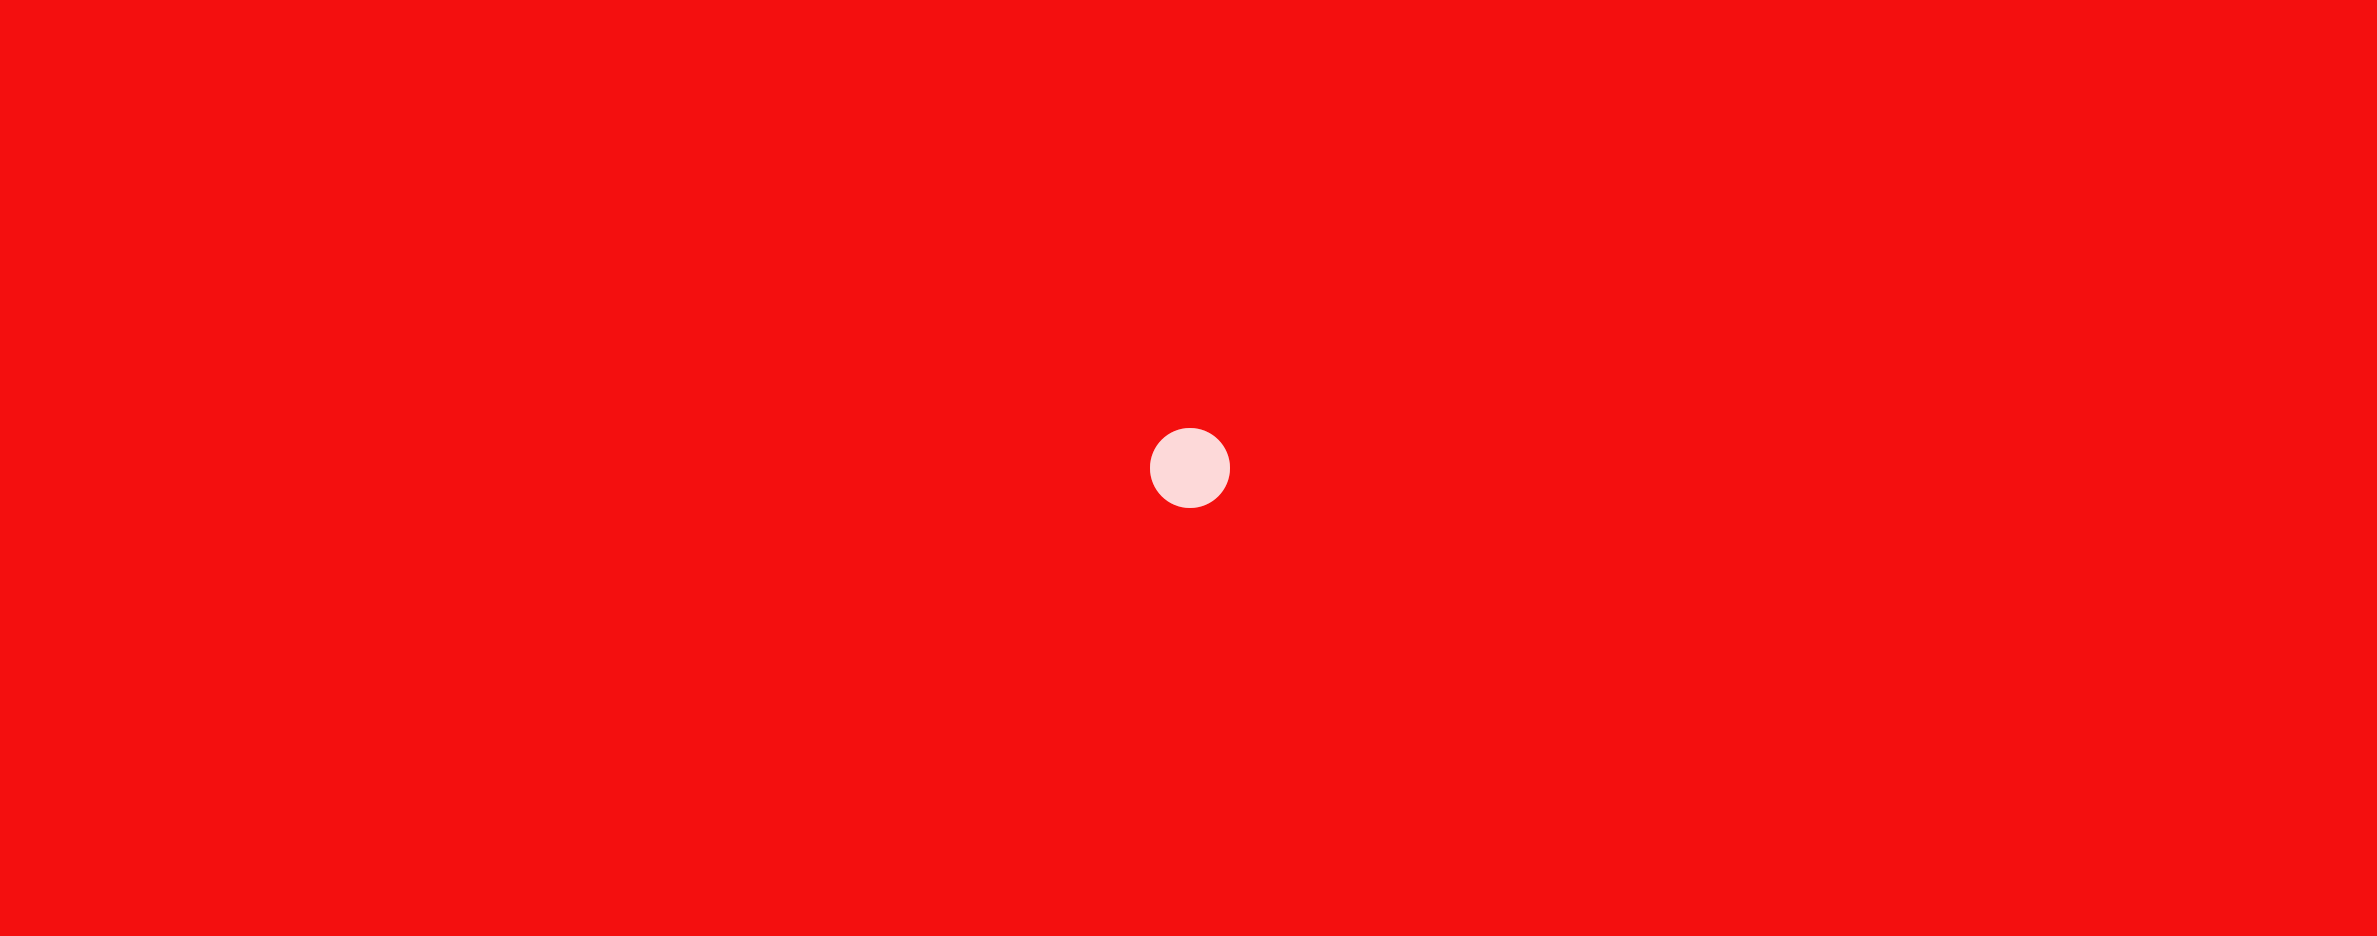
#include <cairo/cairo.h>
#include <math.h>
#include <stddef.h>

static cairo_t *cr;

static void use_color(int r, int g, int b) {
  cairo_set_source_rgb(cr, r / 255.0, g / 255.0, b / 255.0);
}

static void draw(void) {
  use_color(244, 15, 15);
  cairo_paint(cr);
  use_color(251, 159, 159);
  cairo_arc(cr, 1190, 468, 40, 0, 2 * M_PI);
  cairo_fill(cr);
  cairo_set_source_rgba(cr, 1, 1, 1, 0.6);
  cairo_arc(cr, 1190, 468, 40, 0, 2 * M_PI);
  cairo_fill(cr);
}

int main(void) {
  cairo_surface_t *surface = cairo_image_surface_create(CAIRO_FORMAT_RGB24, 2377, 936);
  cr = cairo_create(surface);
  cairo_font_options_t *options = cairo_font_options_create();
  cairo_font_options_set_hint_metrics(options, CAIRO_HINT_METRICS_OFF);
  cairo_font_options_set_hint_style(options, CAIRO_HINT_STYLE_NONE);
  cairo_set_font_options(cr, options);
  cairo_set_miter_limit(cr, 4);
  draw();
  cairo_surface_write_to_png(surface, "out.png");
  cairo_font_options_destroy(options);
  cairo_destroy(cr);
  cairo_surface_destroy(surface);
  return 0;
}
